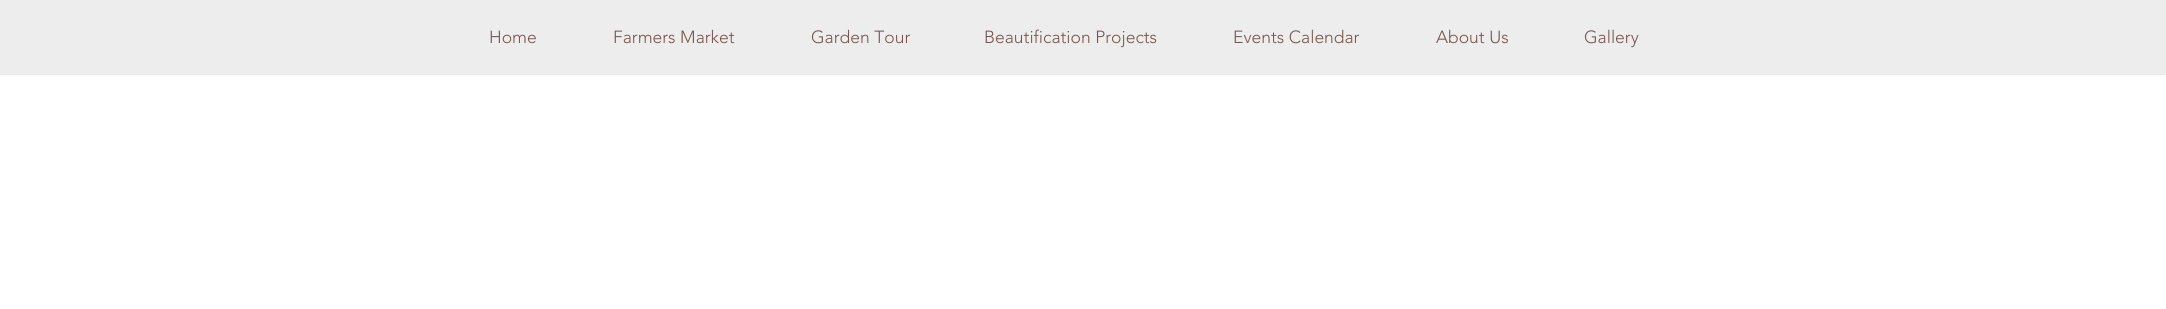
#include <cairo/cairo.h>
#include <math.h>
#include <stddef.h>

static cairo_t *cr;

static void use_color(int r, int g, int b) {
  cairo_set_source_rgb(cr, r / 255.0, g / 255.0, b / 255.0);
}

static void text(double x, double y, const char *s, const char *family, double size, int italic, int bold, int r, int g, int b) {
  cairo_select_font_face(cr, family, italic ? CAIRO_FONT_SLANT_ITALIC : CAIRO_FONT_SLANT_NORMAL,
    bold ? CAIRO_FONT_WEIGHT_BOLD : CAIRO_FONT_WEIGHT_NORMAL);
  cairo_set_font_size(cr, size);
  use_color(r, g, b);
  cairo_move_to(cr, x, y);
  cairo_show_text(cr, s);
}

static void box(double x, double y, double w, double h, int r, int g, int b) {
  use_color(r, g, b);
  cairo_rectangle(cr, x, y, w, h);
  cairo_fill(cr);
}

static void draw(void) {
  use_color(255, 255, 255);
  cairo_paint(cr);
  box(0, 0, 2166, 75, 237, 237, 238);
  text(489, 43, "Home", "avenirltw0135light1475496 Light", 17.5, 0, 0, 123, 85, 73);
  text(613, 43, "Farmers Market", "avenirltw0135light1475496 Light", 17.5, 0, 0, 123, 85, 73);
  text(811, 43, "Garden Tour", "avenirltw0135light1475496 Light", 17.5, 0, 0, 123, 85, 73);
  text(984, 43, "Beautification Projects", "avenirltw0135light1475496 Light", 17.5, 0, 0, 123, 85, 73);
  text(1233, 43, "Events Calendar", "avenirltw0135light1475496 Light", 17.5, 0, 0, 123, 85, 73);
  text(1436, 43, "About Us", "avenirltw0135light1475496 Light", 17.5, 0, 0, 123, 85, 73);
  text(1584, 43, "Gallery", "avenirltw0135light1475496 Light", 17.5, 0, 0, 123, 85, 73);
}

int main(void) {
  cairo_surface_t *surface = cairo_image_surface_create(CAIRO_FORMAT_RGB24, 2166, 309);
  cr = cairo_create(surface);
  cairo_font_options_t *options = cairo_font_options_create();
  cairo_font_options_set_hint_metrics(options, CAIRO_HINT_METRICS_OFF);
  cairo_font_options_set_hint_style(options, CAIRO_HINT_STYLE_NONE);
  cairo_set_font_options(cr, options);
  cairo_set_miter_limit(cr, 4);
  draw();
  cairo_surface_write_to_png(surface, "out.png");
  cairo_font_options_destroy(options);
  cairo_destroy(cr);
  cairo_surface_destroy(surface);
  return 0;
}
